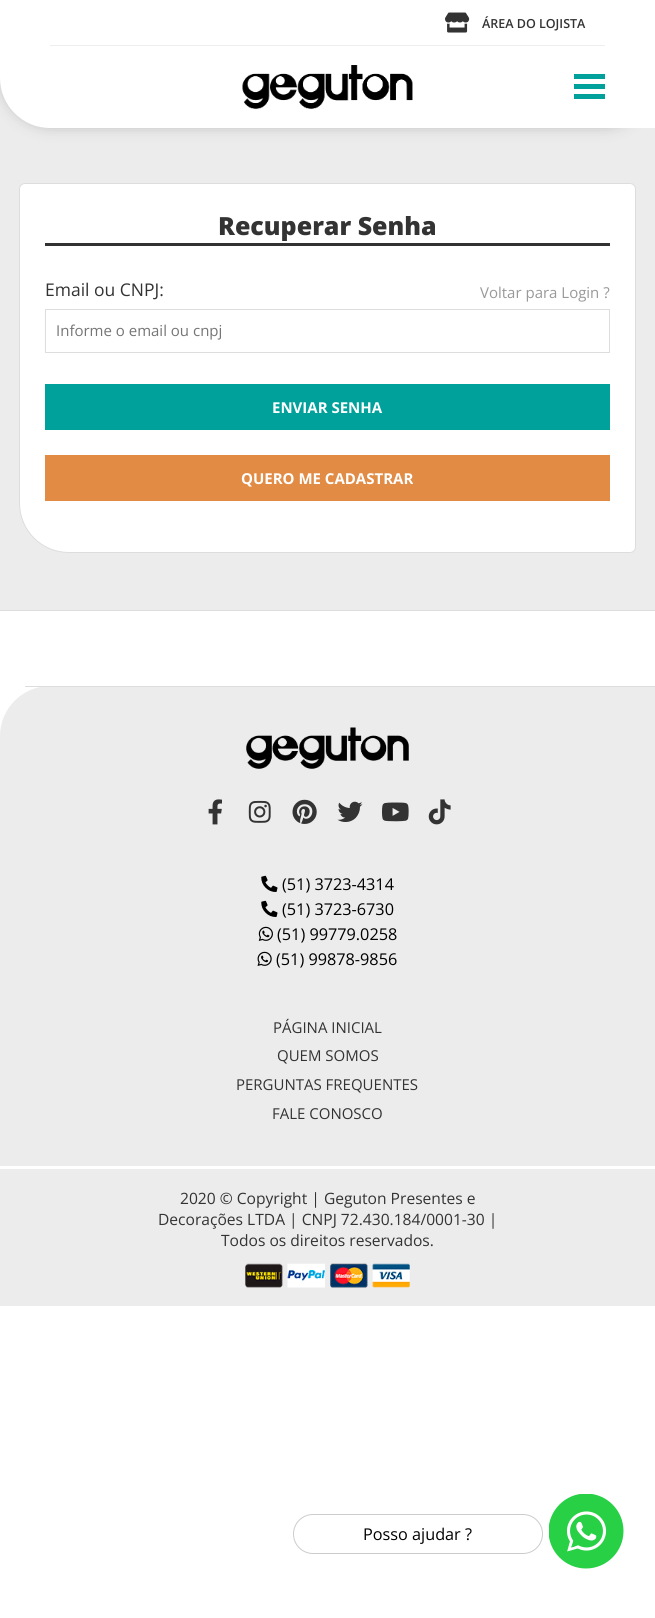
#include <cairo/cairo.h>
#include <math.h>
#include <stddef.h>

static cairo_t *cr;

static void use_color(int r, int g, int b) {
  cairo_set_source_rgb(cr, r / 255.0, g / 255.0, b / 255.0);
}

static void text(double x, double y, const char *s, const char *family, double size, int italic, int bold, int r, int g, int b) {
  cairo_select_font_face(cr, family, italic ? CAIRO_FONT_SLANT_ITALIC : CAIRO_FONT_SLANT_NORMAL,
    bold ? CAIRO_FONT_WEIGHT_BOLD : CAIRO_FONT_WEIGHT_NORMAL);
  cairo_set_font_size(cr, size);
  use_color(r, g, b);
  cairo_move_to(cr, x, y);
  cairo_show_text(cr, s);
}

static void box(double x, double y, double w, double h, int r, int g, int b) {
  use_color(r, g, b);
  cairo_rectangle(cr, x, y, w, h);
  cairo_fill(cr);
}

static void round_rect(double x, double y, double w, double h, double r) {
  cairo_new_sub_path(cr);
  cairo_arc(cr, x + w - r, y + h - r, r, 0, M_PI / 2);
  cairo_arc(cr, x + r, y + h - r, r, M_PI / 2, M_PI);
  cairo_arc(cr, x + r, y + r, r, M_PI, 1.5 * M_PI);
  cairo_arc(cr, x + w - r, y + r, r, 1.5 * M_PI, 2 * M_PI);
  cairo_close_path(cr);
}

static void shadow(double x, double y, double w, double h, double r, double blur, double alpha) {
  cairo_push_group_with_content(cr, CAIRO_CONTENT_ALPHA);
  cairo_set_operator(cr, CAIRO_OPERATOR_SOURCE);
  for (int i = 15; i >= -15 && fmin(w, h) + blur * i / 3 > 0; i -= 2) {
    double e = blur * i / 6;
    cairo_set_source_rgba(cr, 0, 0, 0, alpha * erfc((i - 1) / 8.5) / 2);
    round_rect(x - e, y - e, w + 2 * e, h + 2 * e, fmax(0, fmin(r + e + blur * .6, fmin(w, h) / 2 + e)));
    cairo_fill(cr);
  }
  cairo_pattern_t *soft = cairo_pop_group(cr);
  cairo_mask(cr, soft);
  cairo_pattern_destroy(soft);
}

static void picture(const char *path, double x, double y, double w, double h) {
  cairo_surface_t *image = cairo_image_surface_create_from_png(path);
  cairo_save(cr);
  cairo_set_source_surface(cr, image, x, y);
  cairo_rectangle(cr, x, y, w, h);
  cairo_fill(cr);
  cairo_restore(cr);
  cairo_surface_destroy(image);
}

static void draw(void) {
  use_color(255, 255, 255);
  cairo_paint(cr);
  box(0, 78, 655, 532, 236, 236, 236);
  use_color(33, 33, 33);
  shadow(0, 0, 655, 128, 50, 7, 0.2);
  use_color(255, 255, 255);
  cairo_new_path(cr);
  cairo_move_to(cr, 0, 0);
  cairo_line_to(cr, 655, 0);
  cairo_line_to(cr, 655, 128);
  cairo_line_to(cr, 50, 128);
  cairo_curve_to(cr, 22.5, 128, 0, 105.5, 0, 78);
  cairo_close_path(cr);
  cairo_fill(cr);
  box(50, 45, 555, 1, 238, 238, 238);
  picture("img_01.png", 445, 12, 25, 21);
  picture("img_02.png", 242, 65, 171, 44);
  box(574, 84, 31, 5, 0, 161, 155);
  box(574, 74, 31, 5, 0, 161, 155);
  box(574, 94, 31, 5, 0, 161, 155);
  use_color(255, 255, 255);
  cairo_new_path(cr);
  cairo_move_to(cr, 25, 183.5);
  cairo_line_to(cr, 630, 183.5);
  cairo_curve_to(cr, 633, 183.5, 635.5, 186, 635.5, 189);
  cairo_line_to(cr, 635.5, 547);
  cairo_curve_to(cr, 635.5, 550, 633, 552.5, 630, 552.5);
  cairo_line_to(cr, 69, 552.5);
  cairo_curve_to(cr, 41.5, 552.5, 19.5, 530.5, 19.5, 503);
  cairo_line_to(cr, 19.5, 189);
  cairo_curve_to(cr, 19.5, 186, 22, 183.5, 25, 183.5);
  cairo_close_path(cr);
  cairo_fill_preserve(cr);
  use_color(221, 221, 221);
  cairo_set_line_width(cr, 1);
  cairo_stroke(cr);
  box(45, 243, 565, 3, 51, 51, 51);
  cairo_rectangle(cr, 45.5, 309.5, 564, 43);
  use_color(221, 221, 221);
  cairo_stroke(cr);
  box(45, 384, 565, 46, 0, 161, 155);
  box(45, 455, 565, 46, 226, 139, 68);
  box(0, 610, 655, 1, 221, 221, 221);
  use_color(236, 236, 236);
  cairo_new_path(cr);
  cairo_move_to(cr, 50, 686);
  cairo_line_to(cr, 655, 686);
  cairo_line_to(cr, 655, 1306);
  cairo_line_to(cr, 0, 1306);
  cairo_line_to(cr, 0, 736);
  cairo_curve_to(cr, 0, 708.5, 22.5, 686, 50, 686);
  cairo_close_path(cr);
  cairo_fill(cr);
  box(25, 686, 630, 1, 221, 221, 221);
  picture("img_03.png", 246, 727, 163, 42);
  picture("img_04.png", 208, 799, 14, 26);
  picture("img_05.png", 248, 800, 23, 23);
  picture("img_06.png", 292, 799, 25, 25);
  picture("img_07.png", 337, 801, 26, 21);
  picture("img_08.png", 382, 802, 27, 20);
  picture("img_09.png", 428, 799, 23, 26);
  picture("img_10.png", 261, 875, 17, 17);
  picture("img_10.png", 261, 900, 17, 17);
  picture("img_11.png", 258, 926, 15, 15);
  picture("img_12.png", 257, 951, 15, 15);
  box(0, 1166, 655, 3, 255, 255, 255);
  picture("img_13.png", 245, 1263, 38, 25);
  picture("img_14.png", 287, 1263, 38, 25);
  picture("img_15.png", 330, 1263, 38, 25);
  picture("img_16.png", 372, 1263, 38, 25);
  round_rect(293.5, 1514.5, 249, 39, 19.5);
  use_color(204, 204, 204);
  cairo_stroke(cr);
  picture("img_17.png", 549, 1494, 75, 75);
  text(482, 28, "ÁREA DO LOJISTA", "Open Sans SemiBold", 12.5, 0, 0, 51, 51, 51);
  text(218, 235, "Recuperar Senha", "Open Sans ExtraBold", 25, 0, 0, 51, 51, 51);
  text(45, 296, "Email ou CNPJ:", "Open Sans", 17.5, 0, 0, 51, 51, 51);
  text(480, 298, "Voltar para Login ?", "Open Sans", 15, 0, 0, 153, 153, 153);
  text(56, 336, "Informe o email ou cnpj", "Open Sans", 15, 0, 0, 117, 117, 117);
  text(272, 413, "ENVIAR SENHA", "Open Sans", 15, 0, 1, 255, 255, 255);
  text(241, 484, "QUERO ME CADASTRAR", "Open Sans", 15, 0, 1, 255, 255, 255);
  text(282, 890, "(51) 3723-4314", "Open Sans", 16.25, 0, 0, 0, 0, 0);
  text(282, 915, "(51) 3723-6730", "Open Sans", 16.25, 0, 0, 0, 0, 0);
  text(277, 940, "(51) 99779.0258", "Open Sans", 16.25, 0, 0, 0, 0, 0);
  text(276, 965, "(51) 99878-9856", "Open Sans", 16.25, 0, 0, 0, 0, 0);
  text(273, 1033, "PÁGINA INICIAL", "Open Sans", 15, 0, 0, 51, 51, 51);
  text(277, 1061, "QUEM SOMOS", "Open Sans", 15, 0, 0, 51, 51, 51);
  text(236, 1090, "PERGUNTAS FREQUENTES", "Open Sans", 15, 0, 0, 51, 51, 51);
  text(272, 1119, "FALE CONOSCO", "Open Sans", 15, 0, 0, 51, 51, 51);
  text(180, 1204, "2020 © Copyright | Geguton Presentes e", "Open Sans", 15.6, 0, 0, 51, 51, 51);
  text(158, 1225, "Decorações LTDA | CNPJ 72.430.184/0001-30 |", "Open Sans", 15.6, 0, 0, 51, 51, 51);
  text(221, 1246, "Todos os direitos reservados.", "Open Sans", 15.6, 0, 0, 51, 51, 51);
  text(363, 1540, "Posso ajudar ?", "Open Sans", 16.25, 0, 0, 0, 0, 0);
}

int main(void) {
  cairo_surface_t *surface = cairo_image_surface_create(CAIRO_FORMAT_RGB24, 655, 1618);
  cr = cairo_create(surface);
  cairo_font_options_t *options = cairo_font_options_create();
  cairo_font_options_set_hint_metrics(options, CAIRO_HINT_METRICS_OFF);
  cairo_font_options_set_hint_style(options, CAIRO_HINT_STYLE_NONE);
  cairo_set_font_options(cr, options);
  cairo_set_miter_limit(cr, 4);
  draw();
  cairo_surface_write_to_png(surface, "out.png");
  cairo_font_options_destroy(options);
  cairo_destroy(cr);
  cairo_surface_destroy(surface);
  return 0;
}
